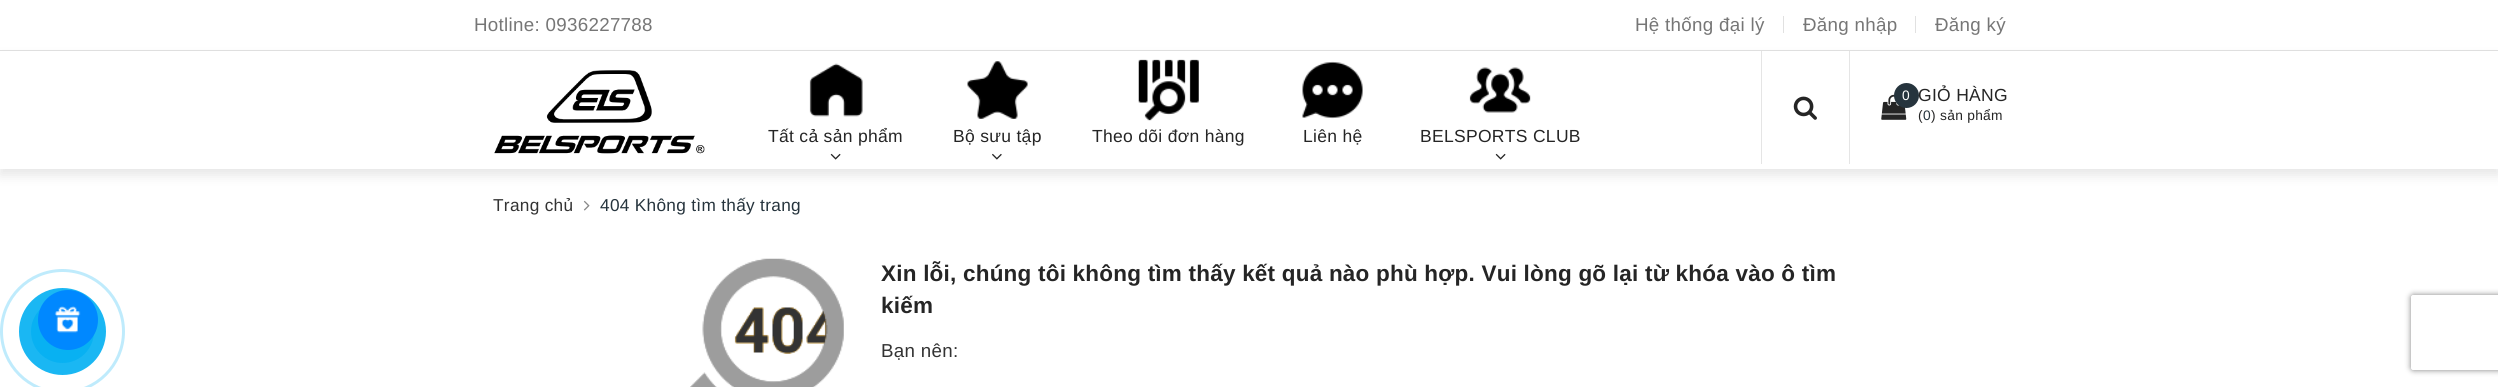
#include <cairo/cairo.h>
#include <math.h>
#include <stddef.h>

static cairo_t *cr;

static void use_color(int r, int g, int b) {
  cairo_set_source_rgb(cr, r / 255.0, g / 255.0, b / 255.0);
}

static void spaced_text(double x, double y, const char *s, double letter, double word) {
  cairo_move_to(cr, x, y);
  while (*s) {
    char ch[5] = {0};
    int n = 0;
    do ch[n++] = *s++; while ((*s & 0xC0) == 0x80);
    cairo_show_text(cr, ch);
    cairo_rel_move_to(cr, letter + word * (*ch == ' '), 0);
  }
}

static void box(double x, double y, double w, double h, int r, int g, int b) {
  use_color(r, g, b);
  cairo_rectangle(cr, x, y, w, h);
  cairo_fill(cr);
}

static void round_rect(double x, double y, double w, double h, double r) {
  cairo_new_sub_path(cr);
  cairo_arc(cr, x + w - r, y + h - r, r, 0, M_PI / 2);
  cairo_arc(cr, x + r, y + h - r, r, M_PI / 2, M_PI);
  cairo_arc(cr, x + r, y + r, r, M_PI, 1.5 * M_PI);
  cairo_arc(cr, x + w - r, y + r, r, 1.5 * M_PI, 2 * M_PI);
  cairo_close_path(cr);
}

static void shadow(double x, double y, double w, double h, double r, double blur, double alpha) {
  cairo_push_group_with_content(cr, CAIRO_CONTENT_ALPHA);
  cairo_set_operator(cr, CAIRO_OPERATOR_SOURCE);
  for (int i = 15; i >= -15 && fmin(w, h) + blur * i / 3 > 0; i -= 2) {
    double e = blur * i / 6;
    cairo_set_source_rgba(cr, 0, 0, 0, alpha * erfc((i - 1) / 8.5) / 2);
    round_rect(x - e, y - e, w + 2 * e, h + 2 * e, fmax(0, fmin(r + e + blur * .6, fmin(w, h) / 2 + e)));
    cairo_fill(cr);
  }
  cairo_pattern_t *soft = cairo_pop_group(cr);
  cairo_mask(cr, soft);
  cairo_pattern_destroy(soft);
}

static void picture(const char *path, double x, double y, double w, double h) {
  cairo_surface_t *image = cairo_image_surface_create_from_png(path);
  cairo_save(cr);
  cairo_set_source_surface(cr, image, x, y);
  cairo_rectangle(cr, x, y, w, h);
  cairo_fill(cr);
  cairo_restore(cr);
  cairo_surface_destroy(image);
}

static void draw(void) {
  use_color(255, 255, 255);
  cairo_paint(cr);
  box(0, 50, 2498, 1, 225, 225, 225);
  box(1783, 16, 1, 17, 225, 225, 225);
  box(1915, 16, 1, 17, 225, 225, 225);
  cairo_save(cr);
  cairo_set_fill_rule(cr, CAIRO_FILL_RULE_EVEN_ODD);
  cairo_new_path(cr);
  cairo_move_to(cr, 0, 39);
  cairo_line_to(cr, 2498, 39);
  cairo_line_to(cr, 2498, 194);
  cairo_line_to(cr, 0, 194);
  cairo_close_path(cr);
  cairo_move_to(cr, 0, 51);
  cairo_line_to(cr, 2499, 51);
  cairo_line_to(cr, 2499, 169);
  cairo_line_to(cr, 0, 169);
  cairo_close_path(cr);
  cairo_clip(cr);
  use_color(84, 84, 84);
  shadow(0, 58, 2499, 117, 0, 6, 0.15);
  cairo_restore(cr);
  cairo_set_source_rgba(cr, 1, 1, 1, 0.96);
  cairo_rectangle(cr, 0, 168, 2498, 1);
  cairo_fill(cr);
  picture("img_01.png", 494, 70, 211, 84);
  box(1849, 51, 1, 113, 229, 229, 229);
  box(1761, 51, 1, 113, 229, 229, 229);
  picture("img_02.png", 1793, 96, 24, 24);
  picture("img_03.png", 1881, 94, 26, 26);
  use_color(38, 52, 61);
  cairo_arc(cr, 1906.5, 95.5, 12.5, 0, 2 * M_PI);
  cairo_fill(cr);
  picture("img_04.png", 809, 63, 54, 54);
  picture("img_05.png", 830, 153, 11, 7);
  picture("img_06.png", 967, 61, 61, 58);
  picture("img_07.png", 992, 153, 10, 7);
  picture("img_08.png", 1138, 59, 61, 62);
  picture("img_09.png", 1302, 61, 61, 58);
  picture("img_10.png", 1469, 67, 62, 46);
  picture("img_05.png", 1495, 153, 11, 7);
  picture("img_11.png", 583, 200, 7, 11);
  cairo_arc(cr, 62.5, 331.5, 61, 0, 2 * M_PI);
  use_color(191, 235, 252);
  cairo_set_line_width(cr, 3);
  cairo_stroke(cr);
  use_color(26, 183, 243);
  cairo_arc(cr, 62.5, 331.5, 43.5, 0, 2 * M_PI);
  cairo_fill(cr);
  use_color(8, 177, 242);
  cairo_arc(cr, 62.5, 331.5, 31.5, 0, 2 * M_PI);
  cairo_fill(cr);
  use_color(0, 136, 255);
  cairo_arc(cr, 68, 320, 30, 0, 2 * M_PI);
  cairo_fill(cr);
  picture("img_12.png", 54, 306, 27, 27);
  picture("img_13.png", 690, 258, 154, 129);
  cairo_save(cr);
  cairo_set_fill_rule(cr, CAIRO_FILL_RULE_EVEN_ODD);
  cairo_new_path(cr);
  cairo_move_to(cr, 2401, 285);
  cairo_line_to(cr, 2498, 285);
  cairo_line_to(cr, 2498, 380);
  cairo_line_to(cr, 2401, 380);
  cairo_close_path(cr);
  cairo_move_to(cr, 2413.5, 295);
  cairo_line_to(cr, 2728.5, 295);
  cairo_curve_to(cr, 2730, 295, 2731, 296, 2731, 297.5);
  cairo_line_to(cr, 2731, 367.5);
  cairo_curve_to(cr, 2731, 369, 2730, 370, 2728.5, 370);
  cairo_line_to(cr, 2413.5, 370);
  cairo_curve_to(cr, 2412, 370, 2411, 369, 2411, 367.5);
  cairo_line_to(cr, 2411, 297.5);
  cairo_curve_to(cr, 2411, 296, 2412, 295, 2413.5, 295);
  cairo_close_path(cr);
  cairo_clip(cr);
  use_color(128, 128, 128);
  shadow(2411, 295, 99, 75, 2.5, 3, 1);
  cairo_restore(cr);
  cairo_select_font_face(cr, "Liberation Sans", CAIRO_FONT_SLANT_NORMAL, CAIRO_FONT_WEIGHT_NORMAL);
  cairo_set_font_size(cr, 18.75);
  use_color(118, 118, 118);
  spaced_text(474, 31, "Hotline: 0936227788", 0.3, 0);
  spaced_text(1635, 31, "Hệ thống đại lý", 0.3, 0);
  spaced_text(1803, 31, "Đăng nhập", 0.3, 0);
  spaced_text(1935, 31, "Đăng ký", 0.3, 0);
  cairo_set_font_size(cr, 13.75);
  use_color(255, 255, 255);
  spaced_text(1902, 100, "0", 0.3, 0);
  cairo_set_font_size(cr, 17.5);
  use_color(37, 37, 37);
  spaced_text(1918, 101, "GIỎ HÀNG", 0.3, 0);
  cairo_set_font_size(cr, 13.75);
  spaced_text(1918, 120, "(", 0.3, 0);
  use_color(38, 52, 61);
  spaced_text(1923, 120, "0", 0.3, 0);
  use_color(37, 37, 37);
  spaced_text(1931, 120, ") sản phẩm", 0.3, 0);
  cairo_set_font_size(cr, 17.5);
  spaced_text(768, 142, "Tất cả sản phẩm", 0.3, 0);
  spaced_text(953, 142, "Bộ sưu tập", 0.3, 0);
  spaced_text(1092, 142, "Theo dõi đơn hàng", 0.3, 0);
  spaced_text(1303, 142, "Liên hệ", 0.3, 0);
  spaced_text(1420, 142, "BELSPORTS CLUB", 0.3, 0);
  cairo_set_font_size(cr, 17.25);
  use_color(51, 51, 51);
  spaced_text(493, 211, "Trang chủ", 0.3, 0);
  use_color(38, 52, 61);
  spaced_text(600, 211, "404 Không tìm thấy trang", 0.3, 0);
  cairo_select_font_face(cr, "Liberation Sans", CAIRO_FONT_SLANT_NORMAL, CAIRO_FONT_WEIGHT_BOLD);
  cairo_set_font_size(cr, 22.5);
  use_color(37, 37, 37);
  spaced_text(881, 281, "Xin lỗi, chúng tôi không tìm thấy kết quả nào phù hợp. Vui lòng gõ lại từ khóa vào ô tìm", 0.22, 0);
  spaced_text(881, 313, "kiếm", 0.22, 0);
  cairo_select_font_face(cr, "Liberation Sans", CAIRO_FONT_SLANT_NORMAL, CAIRO_FONT_WEIGHT_NORMAL);
  cairo_set_font_size(cr, 18.75);
  use_color(51, 51, 51);
  spaced_text(881, 357, "Bạn nên:", 0.3, 0);
}

int main(void) {
  cairo_surface_t *surface = cairo_image_surface_create(CAIRO_FORMAT_RGB24, 2498, 387);
  cr = cairo_create(surface);
  cairo_font_options_t *options = cairo_font_options_create();
  cairo_font_options_set_hint_metrics(options, CAIRO_HINT_METRICS_OFF);
  cairo_font_options_set_hint_style(options, CAIRO_HINT_STYLE_NONE);
  cairo_set_font_options(cr, options);
  cairo_set_miter_limit(cr, 4);
  draw();
  cairo_surface_write_to_png(surface, "out.png");
  cairo_font_options_destroy(options);
  cairo_destroy(cr);
  cairo_surface_destroy(surface);
  return 0;
}
